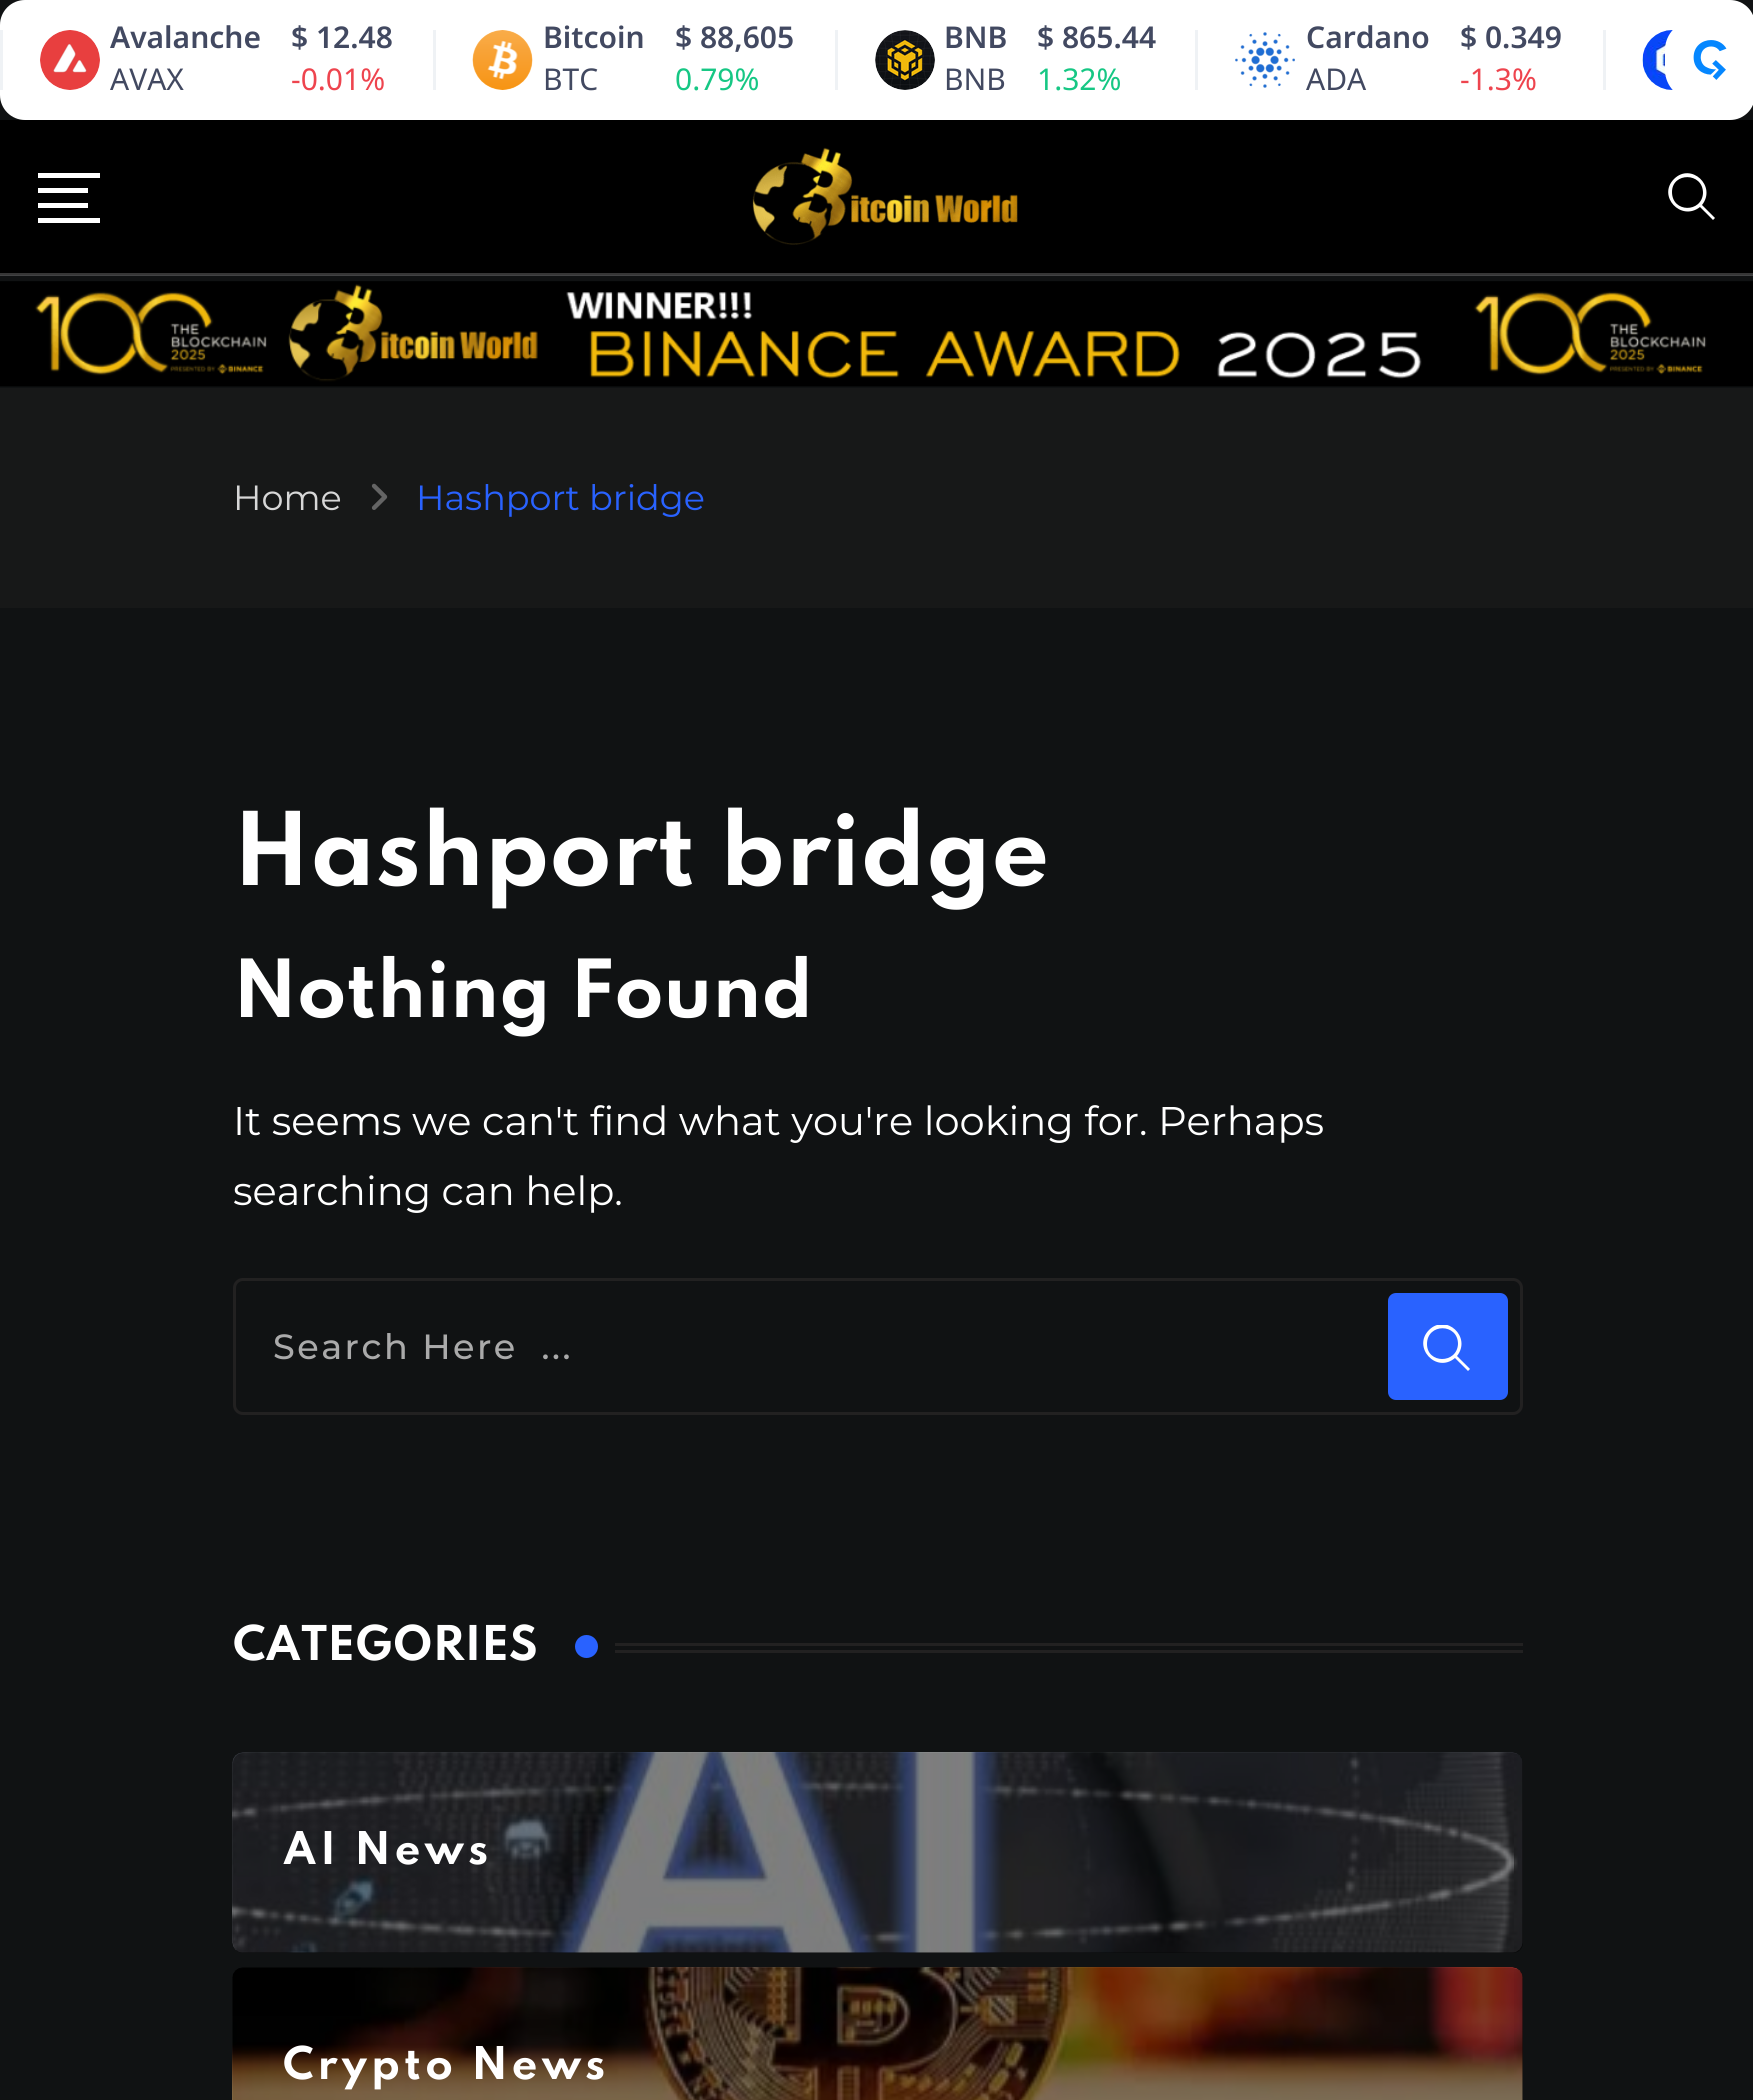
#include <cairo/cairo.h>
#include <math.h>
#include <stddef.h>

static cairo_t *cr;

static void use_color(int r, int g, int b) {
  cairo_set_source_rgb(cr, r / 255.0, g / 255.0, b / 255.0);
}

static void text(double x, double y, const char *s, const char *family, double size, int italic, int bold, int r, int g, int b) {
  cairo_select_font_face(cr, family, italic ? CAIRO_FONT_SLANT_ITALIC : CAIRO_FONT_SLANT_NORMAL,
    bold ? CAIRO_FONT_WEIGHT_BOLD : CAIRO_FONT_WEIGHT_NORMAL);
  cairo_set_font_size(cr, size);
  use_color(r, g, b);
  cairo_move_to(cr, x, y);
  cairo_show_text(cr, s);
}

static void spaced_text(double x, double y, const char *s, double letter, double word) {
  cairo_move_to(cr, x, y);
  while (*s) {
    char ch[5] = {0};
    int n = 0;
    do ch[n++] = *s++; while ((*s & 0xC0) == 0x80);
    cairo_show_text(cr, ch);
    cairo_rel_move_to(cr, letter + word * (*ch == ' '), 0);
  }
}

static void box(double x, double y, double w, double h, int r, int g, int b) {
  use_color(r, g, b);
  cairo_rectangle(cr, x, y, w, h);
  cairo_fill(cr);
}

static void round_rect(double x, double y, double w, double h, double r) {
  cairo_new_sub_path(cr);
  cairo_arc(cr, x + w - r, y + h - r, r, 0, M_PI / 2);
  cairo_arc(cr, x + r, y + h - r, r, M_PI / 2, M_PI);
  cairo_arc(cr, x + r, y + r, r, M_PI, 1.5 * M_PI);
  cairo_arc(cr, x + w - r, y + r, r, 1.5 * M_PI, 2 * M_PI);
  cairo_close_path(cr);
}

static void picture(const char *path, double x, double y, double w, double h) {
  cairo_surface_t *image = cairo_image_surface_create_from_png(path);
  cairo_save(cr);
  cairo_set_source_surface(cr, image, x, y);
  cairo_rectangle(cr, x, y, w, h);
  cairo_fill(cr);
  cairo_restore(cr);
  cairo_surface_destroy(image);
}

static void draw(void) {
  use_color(16, 18, 19);
  cairo_paint(cr);
  box(0, 275, 1753, 1, 66, 67, 68);
  use_color(255, 255, 255);
  round_rect(0, 0, 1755, 120, 25);
  cairo_fill(cr);
  box(0, 30, 3, 60, 239, 242, 245);
  picture("img_01.png", 40, 30, 60, 60);
  box(433, 30, 3, 60, 239, 242, 245);
  picture("img_02.png", 472, 30, 61, 60);
  box(835, 30, 3, 60, 239, 242, 245);
  picture("img_03.png", 875, 30, 60, 60);
  box(1195, 30, 3, 60, 239, 242, 245);
  picture("img_04.png", 1235, 32, 60, 56);
  box(1603, 30, 3, 60, 239, 242, 245);
  picture("img_05.png", 1642, 30, 31, 60);
  use_color(255, 255, 255);
  cairo_new_path(cr);
  cairo_move_to(cr, 1695, 20);
  cairo_line_to(cr, 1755, 20);
  cairo_line_to(cr, 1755, 100);
  cairo_line_to(cr, 1695, 100);
  cairo_curve_to(cr, 1678.5, 100, 1665, 86.5, 1665, 70);
  cairo_line_to(cr, 1665, 50);
  cairo_curve_to(cr, 1665, 33.5, 1678.5, 20, 1695, 20);
  cairo_close_path(cr);
  cairo_fill(cr);
  picture("img_06.png", 1693, 40, 34, 40);
  box(0, 120, 1753, 153, 0, 0, 0);
  box(0, 273, 1753, 2, 54, 54, 54);
  box(38, 173, 62, 5, 255, 255, 255);
  box(38, 188, 50, 5, 255, 255, 255);
  box(38, 203, 50, 5, 255, 255, 255);
  box(38, 218, 62, 5, 255, 255, 255);
  picture("img_07.png", 752, 147, 266, 98);
  cairo_new_path(cr);
  cairo_move_to(cr, 1715, 218);
  cairo_line_to(cr, 1702, 205);
  cairo_curve_to(cr, 1717, 186, 1691, 162, 1674, 179);
  cairo_curve_to(cr, 1657, 196, 1681, 222, 1700, 207);
  cairo_line_to(cr, 1713, 220);
  cairo_close_path(cr);
  cairo_move_to(cr, 1672, 192);
  cairo_curve_to(cr, 1672, 172, 1703, 172, 1703, 193);
  cairo_curve_to(cr, 1702, 213, 1672, 213, 1672, 192);
  cairo_close_path(cr);
  cairo_fill(cr);
  picture("img_08.png", 0, 281, 1753, 106);
  box(0, 388, 1753, 220, 23, 24, 24);
  picture("img_09.png", 371, 483, 17, 27);
  round_rect(234.5, 1279.5, 1287, 134, 8.5);
  use_color(34, 33, 33);
  cairo_set_line_width(cr, 3);
  cairo_stroke(cr);
  use_color(41, 98, 255);
  round_rect(1388, 1293, 120, 107, 8);
  cairo_fill(cr);
  cairo_save(cr);
  cairo_rectangle(cr, 1423, 1325, 50, 50);
  cairo_clip(cr);
  use_color(255, 255, 255);
  cairo_new_path(cr);
  cairo_move_to(cr, 1470, 1369);
  cairo_line_to(cr, 1457, 1356);
  cairo_curve_to(cr, 1472, 1337, 1446, 1313, 1429, 1330);
  cairo_curve_to(cr, 1412, 1347, 1436, 1374, 1455, 1358);
  cairo_line_to(cr, 1468, 1371);
  cairo_close_path(cr);
  cairo_move_to(cr, 1427, 1344);
  cairo_curve_to(cr, 1427, 1323, 1458, 1323, 1458, 1344);
  cairo_curve_to(cr, 1457, 1364, 1427, 1364, 1427, 1344);
  cairo_close_path(cr);
  cairo_fill(cr);
  cairo_restore(cr);
  cairo_arc(cr, 586.5, 1646.5, 11.5, 0, 2 * M_PI);
  cairo_fill(cr);
  box(615, 1643, 908, 3, 34, 33, 33);
  box(615, 1650, 908, 3, 34, 33, 33);
  picture("img_10.png", 232, 1752, 1291, 201);
  cairo_set_source_rgba(cr, 0, 0, 0, 0.5);
  round_rect(233, 1753, 1290, 200, 10);
  cairo_fill(cr);
  picture("img_11.png", 232, 1967, 1291, 133);
  round_rect(233, 1968, 1290, 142, 10);
  cairo_fill(cr);
  text(110, 48, "Avalanche", "Noto Sans SemiBold", 30, 0, 0, 66, 73, 97);
  text(110, 90, "AVAX", "Noto Sans", 30, 0, 0, 66, 73, 97);
  text(291, 48, "$ 12.48", "Noto Sans SemiBold", 30, 0, 0, 66, 73, 97);
  text(291, 90, "-0.01%", "Noto Sans", 30, 0, 0, 238, 68, 78);
  text(543, 48, "Bitcoin", "Noto Sans SemiBold", 30, 0, 0, 66, 73, 97);
  text(543, 90, "BTC", "Noto Sans", 30, 0, 0, 66, 73, 97);
  text(675, 48, "$ 88,605", "Noto Sans SemiBold", 30, 0, 0, 66, 73, 97);
  text(675, 90, "0.79%", "Noto Sans", 30, 0, 0, 22, 199, 132);
  text(944, 48, "BNB", "Noto Sans SemiBold", 30, 0, 0, 66, 73, 97);
  text(944, 90, "BNB", "Noto Sans", 30, 0, 0, 66, 73, 97);
  text(1037, 48, "$ 865.44", "Noto Sans SemiBold", 30, 0, 0, 66, 73, 97);
  text(1037, 90, "1.32%", "Noto Sans", 30, 0, 0, 22, 199, 132);
  text(1306, 48, "Cardano", "Noto Sans SemiBold", 30, 0, 0, 66, 73, 97);
  text(1306, 90, "ADA", "Noto Sans", 30, 0, 0, 66, 73, 97);
  text(1460, 48, "$ 0.349", "Noto Sans SemiBold", 30, 0, 0, 66, 73, 97);
  text(1460, 90, "-1.3%", "Noto Sans", 30, 0, 0, 238, 68, 78);
  text(233, 510, "Home", "Montserrat", 35, 0, 0, 215, 215, 215);
  text(416, 510, "Hashport bridge", "Montserrat", 35, 0, 0, 41, 98, 255);
  text(233, 885, "Hashport bridge", "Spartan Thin", 90, 0, 1, 255, 255, 255);
  text(233, 1017, "Nothing Found", "Spartan Thin", 71, 0, 1, 255, 255, 255);
  text(233, 1135, "It seems we can't find what you're looking for. Perhaps", "Montserrat", 40, 0, 0, 255, 255, 255);
  text(233, 1205, "searching can help.", "Montserrat", 40, 0, 0, 255, 255, 255);
  cairo_select_font_face(cr, "Montserrat Medium", CAIRO_FONT_SLANT_NORMAL, CAIRO_FONT_WEIGHT_NORMAL);
  cairo_set_font_size(cr, 35);
  use_color(170, 170, 170);
  spaced_text(273, 1359, "Search Here  ...", 2.5, 0);
  text(233, 1660, "CATEGORIES", "Spartan Thin", 42.5, 0, 1, 255, 255, 255);
  cairo_set_font_size(cr, 40);
  spaced_text(283, 1864, "AI News", 4, 0);
  spaced_text(283, 2079, "Crypto News", 4, 0);
}

int main(void) {
  cairo_surface_t *surface = cairo_image_surface_create(CAIRO_FORMAT_RGB24, 1753, 2100);
  cr = cairo_create(surface);
  cairo_font_options_t *options = cairo_font_options_create();
  cairo_font_options_set_hint_metrics(options, CAIRO_HINT_METRICS_OFF);
  cairo_font_options_set_hint_style(options, CAIRO_HINT_STYLE_NONE);
  cairo_set_font_options(cr, options);
  cairo_set_miter_limit(cr, 4);
  draw();
  cairo_surface_write_to_png(surface, "out.png");
  cairo_font_options_destroy(options);
  cairo_destroy(cr);
  cairo_surface_destroy(surface);
  return 0;
}
